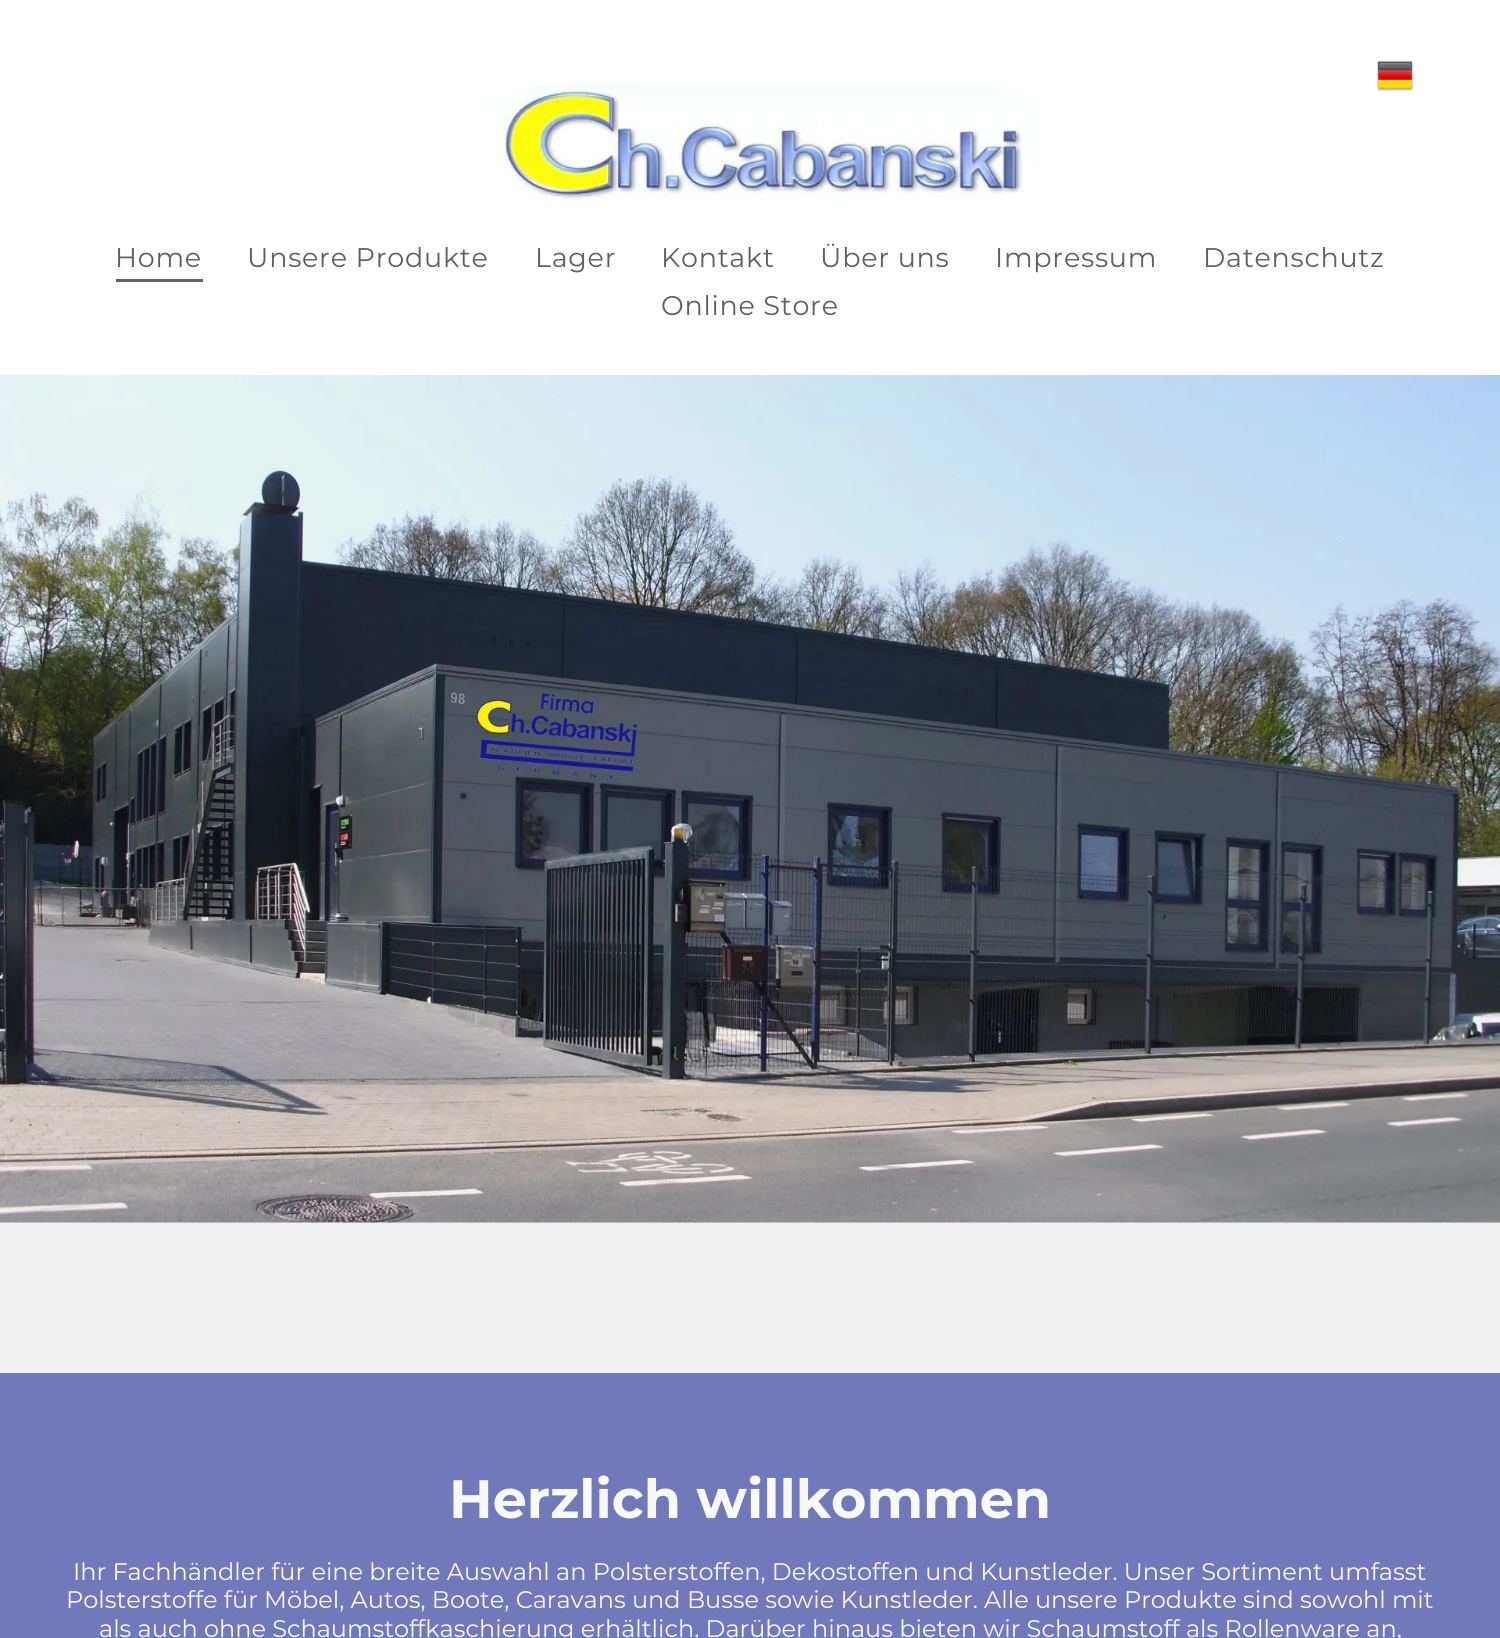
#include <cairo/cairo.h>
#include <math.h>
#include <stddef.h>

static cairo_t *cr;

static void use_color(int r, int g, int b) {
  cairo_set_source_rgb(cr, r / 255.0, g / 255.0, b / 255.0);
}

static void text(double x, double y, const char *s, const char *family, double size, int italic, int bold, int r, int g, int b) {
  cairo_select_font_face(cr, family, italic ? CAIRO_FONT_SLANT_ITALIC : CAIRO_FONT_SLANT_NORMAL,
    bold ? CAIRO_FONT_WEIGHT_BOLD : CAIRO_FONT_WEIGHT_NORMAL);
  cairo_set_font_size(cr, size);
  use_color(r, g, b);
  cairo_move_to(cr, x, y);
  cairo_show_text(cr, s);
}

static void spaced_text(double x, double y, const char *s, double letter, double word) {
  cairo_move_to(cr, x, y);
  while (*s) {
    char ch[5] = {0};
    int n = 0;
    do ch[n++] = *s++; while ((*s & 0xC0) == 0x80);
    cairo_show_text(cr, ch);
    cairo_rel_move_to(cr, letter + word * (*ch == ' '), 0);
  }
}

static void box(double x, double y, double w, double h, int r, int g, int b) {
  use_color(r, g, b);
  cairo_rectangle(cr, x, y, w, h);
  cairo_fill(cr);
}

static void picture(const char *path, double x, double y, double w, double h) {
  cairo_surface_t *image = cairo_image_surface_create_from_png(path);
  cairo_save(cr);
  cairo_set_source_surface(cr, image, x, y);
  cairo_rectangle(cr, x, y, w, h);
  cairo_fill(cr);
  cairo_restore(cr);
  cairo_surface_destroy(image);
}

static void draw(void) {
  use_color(240, 240, 240);
  cairo_paint(cr);
  box(0, 0, 1500, 375, 255, 255, 255);
  picture("img_01.png", 1377, 60, 36, 31);
  picture("img_02.png", 489, 83, 551, 118);
  box(116, 279, 87, 3, 97, 97, 97);
  picture("img_03.png", 0, 375, 1500, 848);
  box(0, 1373, 1500, 265, 114, 121, 187);
  cairo_select_font_face(cr, "Montserrat", CAIRO_FONT_SLANT_NORMAL, CAIRO_FONT_WEIGHT_NORMAL);
  cairo_set_font_size(cr, 27);
  use_color(97, 97, 97);
  spaced_text(115, 267, "Home", 0.75, 0);
  spaced_text(247, 267, "Unsere Produkte", 0.75, 0);
  spaced_text(535, 267, "Lager", 0.75, 0);
  spaced_text(661, 267, "Kontakt", 0.75, 0);
  spaced_text(820, 267, "Über uns", 0.75, 0);
  spaced_text(995, 267, "Impressum", 0.75, 0);
  spaced_text(1203, 267, "Datenschutz", 0.75, 0);
  spaced_text(661, 315, "Online Store", 0.75, 0);
  text(449, 1518, "Herzlich willkommen", "Montserrat", 54, 0, 1, 249, 249, 249);
  text(73, 1580, "Ihr Fachhändler für eine breite Auswahl an Polsterstoffen, Dekostoffen und Kunstleder. Unser Sortiment umfasst", "Montserrat", 24, 0, 0, 249, 249, 249);
  text(66, 1608, "Polsterstoffe für Möbel, Autos, Boote, Caravans und Busse sowie Kunstleder. Alle unsere Produkte sind sowohl mit", "Montserrat", 24, 0, 0, 249, 249, 249);
  text(99, 1637, "als auch ohne Schaumstoffkaschierung erhältlich. Darüber hinaus bieten wir Schaumstoff als Rollenware an,", "Montserrat", 24, 0, 0, 249, 249, 249);
}

int main(void) {
  cairo_surface_t *surface = cairo_image_surface_create(CAIRO_FORMAT_RGB24, 1500, 1638);
  cr = cairo_create(surface);
  cairo_font_options_t *options = cairo_font_options_create();
  cairo_font_options_set_hint_metrics(options, CAIRO_HINT_METRICS_OFF);
  cairo_font_options_set_hint_style(options, CAIRO_HINT_STYLE_NONE);
  cairo_set_font_options(cr, options);
  cairo_set_miter_limit(cr, 4);
  draw();
  cairo_surface_write_to_png(surface, "out.png");
  cairo_font_options_destroy(options);
  cairo_destroy(cr);
  cairo_surface_destroy(surface);
  return 0;
}
